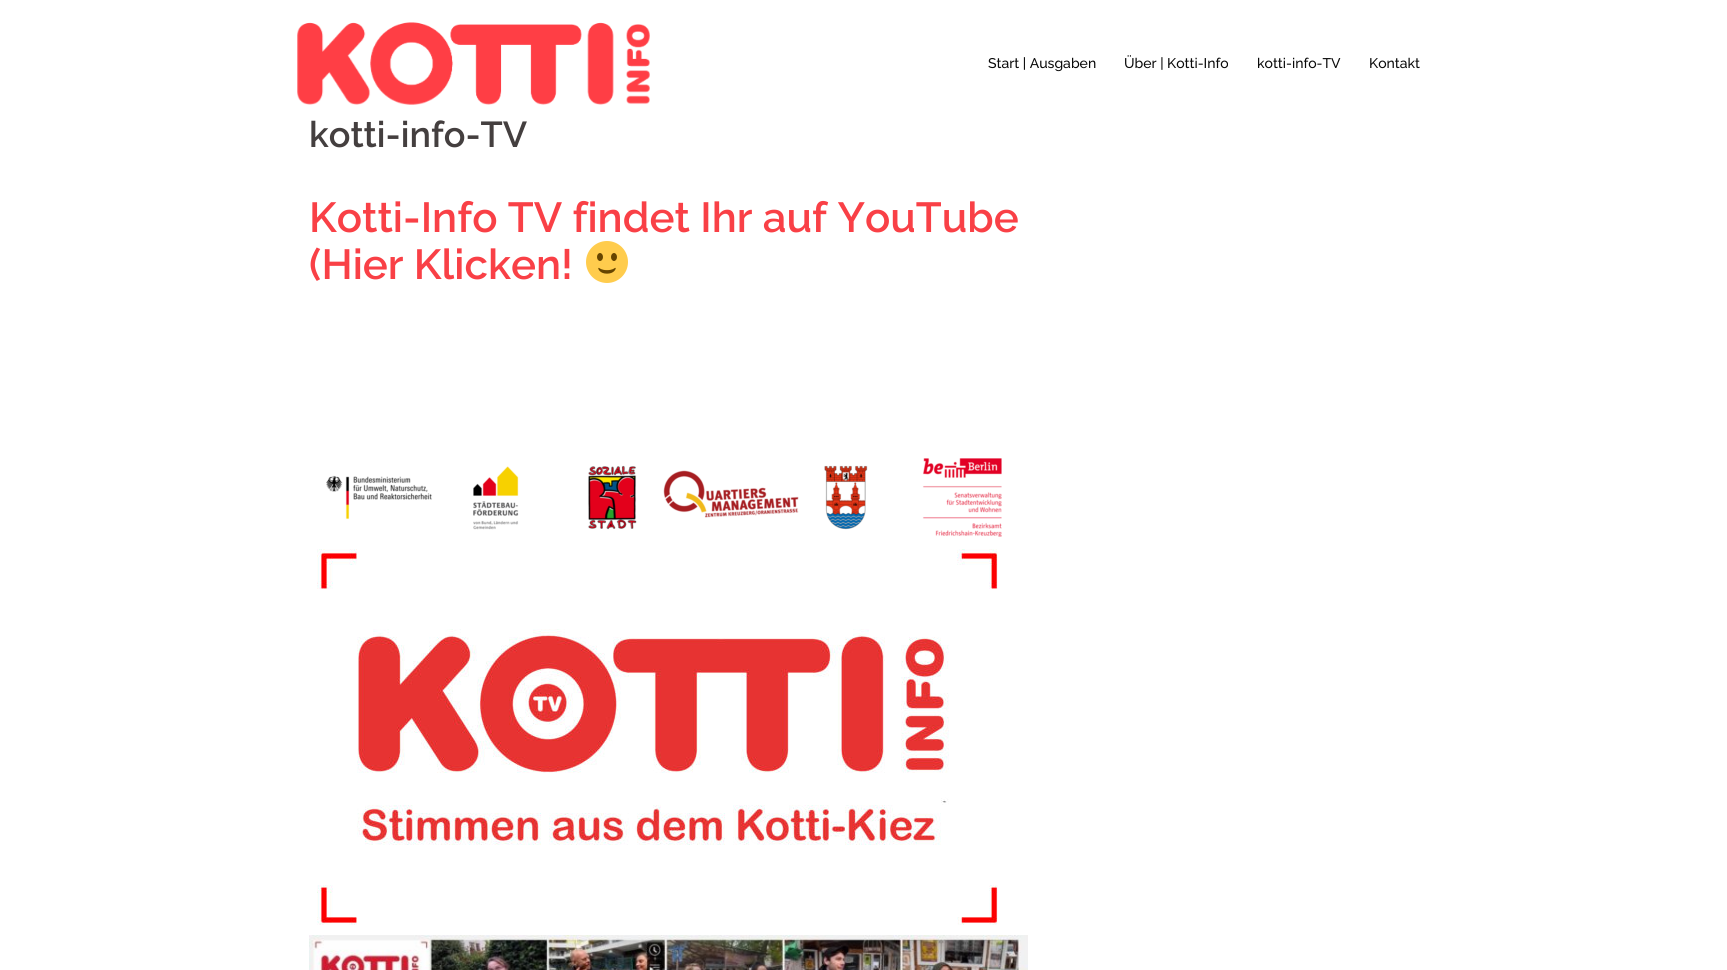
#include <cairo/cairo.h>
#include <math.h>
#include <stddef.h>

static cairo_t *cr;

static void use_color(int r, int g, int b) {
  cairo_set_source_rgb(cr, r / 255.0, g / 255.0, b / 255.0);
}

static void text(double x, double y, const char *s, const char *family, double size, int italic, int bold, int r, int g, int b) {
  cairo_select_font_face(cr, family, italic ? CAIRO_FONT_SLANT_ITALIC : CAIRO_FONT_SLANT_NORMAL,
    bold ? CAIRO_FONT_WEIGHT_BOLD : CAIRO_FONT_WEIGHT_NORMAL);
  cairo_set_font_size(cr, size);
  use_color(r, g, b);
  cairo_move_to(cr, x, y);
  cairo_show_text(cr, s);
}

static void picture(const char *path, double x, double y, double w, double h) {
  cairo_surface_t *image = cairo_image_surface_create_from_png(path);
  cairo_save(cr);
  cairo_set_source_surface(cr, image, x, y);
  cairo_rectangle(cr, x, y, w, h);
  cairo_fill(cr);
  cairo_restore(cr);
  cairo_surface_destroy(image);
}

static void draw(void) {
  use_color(255, 255, 255);
  cairo_paint(cr);
  picture("img_01.png", 297, 22, 353, 83);
  picture("img_02.png", 586, 241, 42, 42);
  picture("img_03.png", 326, 458, 676, 79);
  picture("img_04.png", 317, 549, 681, 376);
  picture("img_05.png", 309, 935, 719, 35);
  text(988, 68, "Start | Ausgaben", "Raleway Medium", 14, 0, 0, 10, 10, 10);
  text(1124, 68, "Über | Kotti-Info", "Raleway Medium", 14, 0, 0, 10, 10, 10);
  text(1257, 68, "kotti-info-TV", "Raleway Medium", 14, 0, 0, 10, 10, 10);
  text(1369, 68, "Kontakt", "Raleway Medium", 14, 0, 0, 10, 10, 10);
  text(309, 147, "kotti-info-TV", "Raleway SemiBold", 36, 0, 0, 68, 63, 63);
  text(309, 232, "Kotti-Info TV findet Ihr auf YouTube", "Raleway SemiBold", 42, 0, 0, 249, 64, 70);
  text(309, 279, "(Hier Klicken!", "Raleway SemiBold", 42, 0, 0, 249, 64, 70);
}

int main(void) {
  cairo_surface_t *surface = cairo_image_surface_create(CAIRO_FORMAT_RGB24, 1727, 970);
  cr = cairo_create(surface);
  cairo_font_options_t *options = cairo_font_options_create();
  cairo_font_options_set_hint_metrics(options, CAIRO_HINT_METRICS_OFF);
  cairo_font_options_set_hint_style(options, CAIRO_HINT_STYLE_NONE);
  cairo_set_font_options(cr, options);
  cairo_set_miter_limit(cr, 4);
  draw();
  cairo_surface_write_to_png(surface, "out.png");
  cairo_font_options_destroy(options);
  cairo_destroy(cr);
  cairo_surface_destroy(surface);
  return 0;
}
